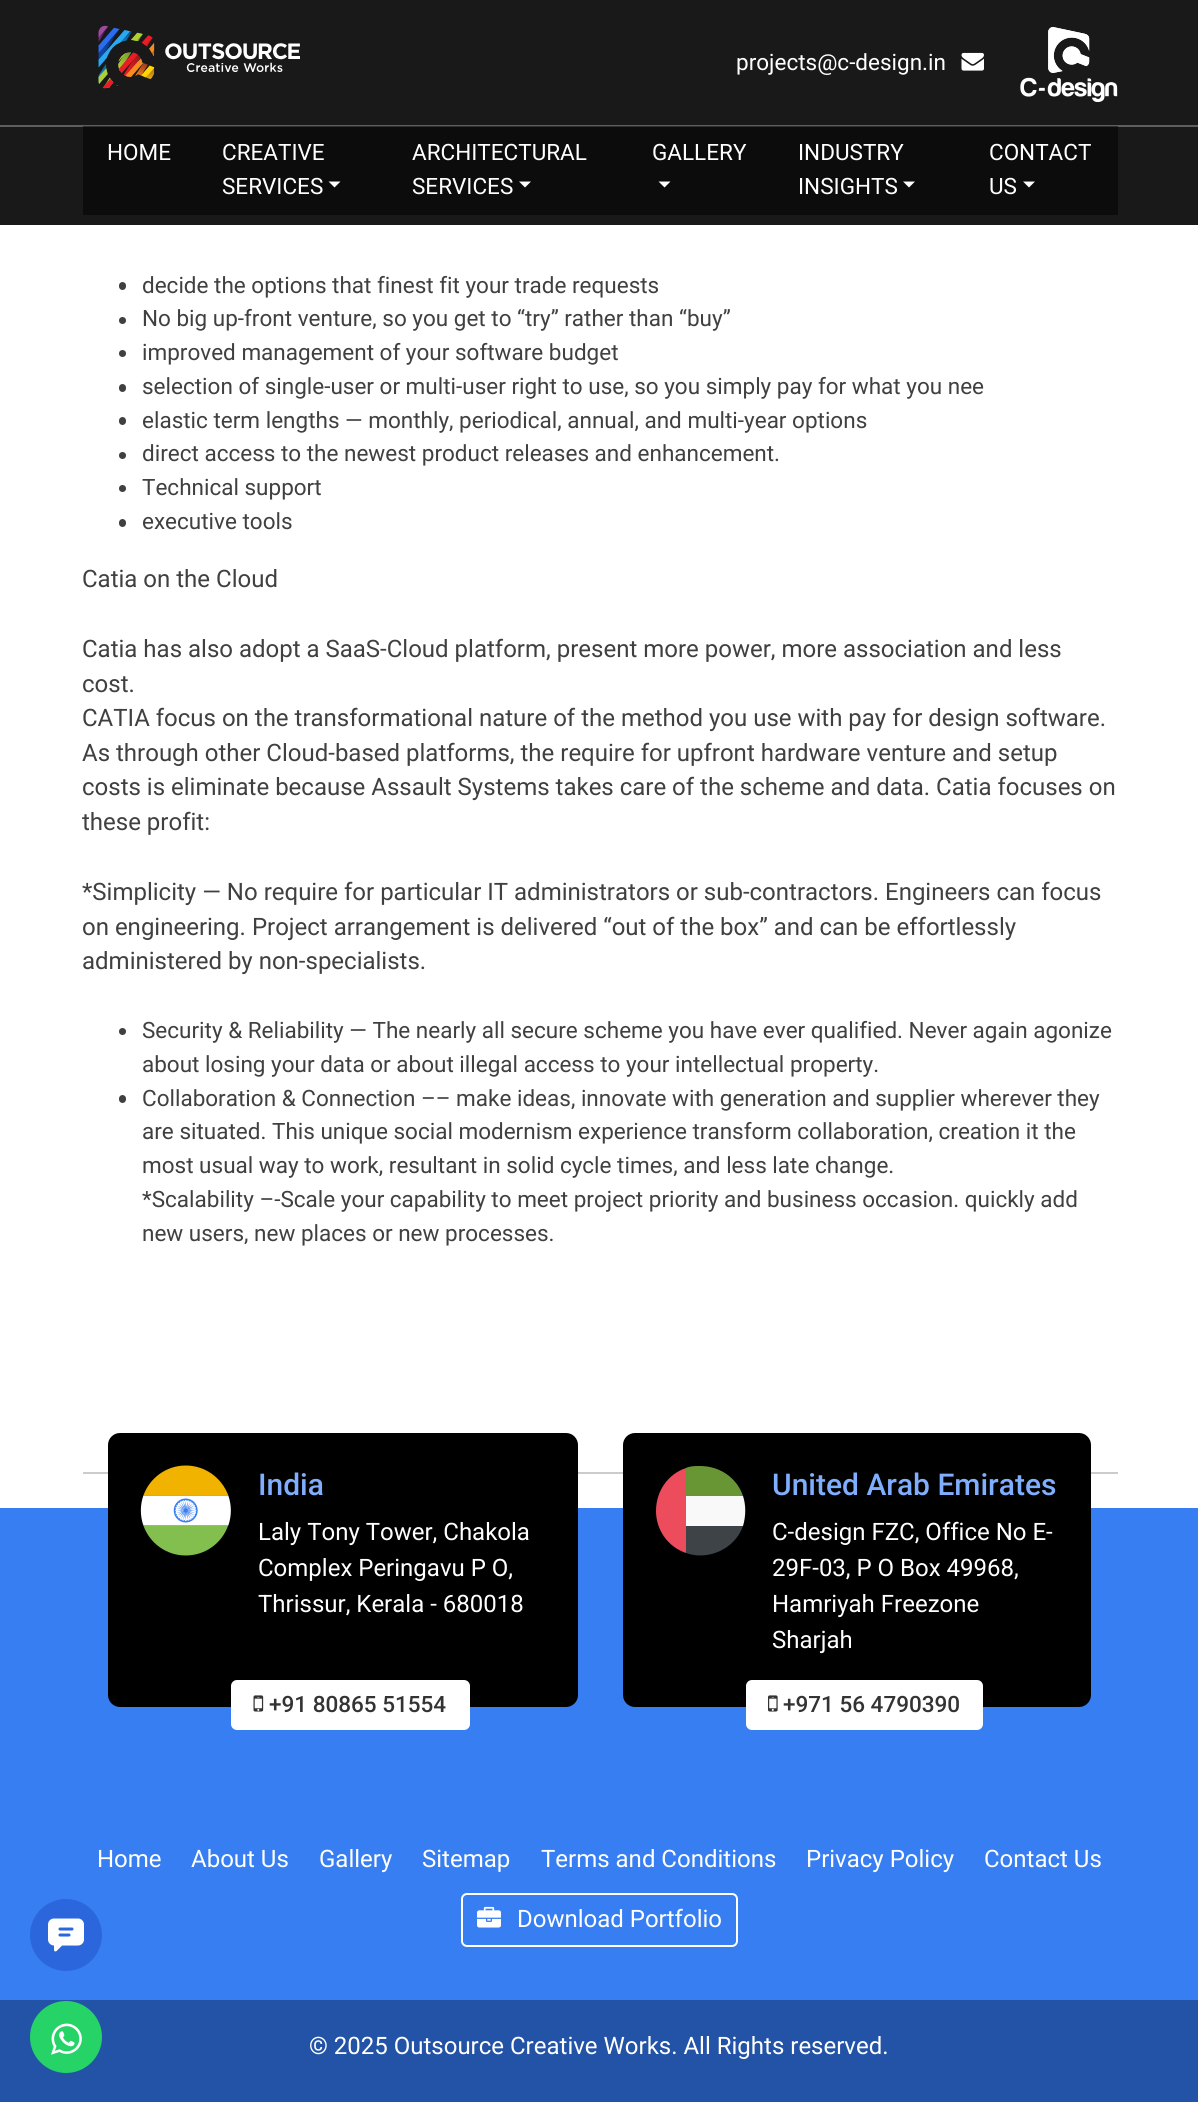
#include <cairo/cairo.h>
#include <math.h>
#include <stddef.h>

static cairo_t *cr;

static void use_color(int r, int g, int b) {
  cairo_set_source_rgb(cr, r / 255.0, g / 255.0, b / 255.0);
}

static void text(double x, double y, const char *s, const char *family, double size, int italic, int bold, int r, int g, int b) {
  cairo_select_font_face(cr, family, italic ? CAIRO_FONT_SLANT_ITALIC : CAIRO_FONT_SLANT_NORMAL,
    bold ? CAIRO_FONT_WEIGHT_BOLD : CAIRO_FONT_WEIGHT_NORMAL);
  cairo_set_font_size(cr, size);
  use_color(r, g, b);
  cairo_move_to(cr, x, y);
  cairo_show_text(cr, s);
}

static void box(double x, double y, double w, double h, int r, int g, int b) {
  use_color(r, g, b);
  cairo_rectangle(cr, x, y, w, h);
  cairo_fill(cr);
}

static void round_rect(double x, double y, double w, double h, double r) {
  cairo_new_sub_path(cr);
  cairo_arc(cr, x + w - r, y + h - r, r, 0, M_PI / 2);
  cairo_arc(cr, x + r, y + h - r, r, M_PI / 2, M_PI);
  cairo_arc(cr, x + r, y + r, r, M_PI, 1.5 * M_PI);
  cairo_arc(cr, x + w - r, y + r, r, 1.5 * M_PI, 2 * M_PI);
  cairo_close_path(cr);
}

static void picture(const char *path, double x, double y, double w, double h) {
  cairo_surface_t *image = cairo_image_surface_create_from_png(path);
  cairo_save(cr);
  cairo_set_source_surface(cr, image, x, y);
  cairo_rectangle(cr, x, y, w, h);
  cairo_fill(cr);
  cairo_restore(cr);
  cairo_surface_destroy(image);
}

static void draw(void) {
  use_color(255, 255, 255);
  cairo_paint(cr);
  cairo_set_source_rgba(cr, 0, 0, 0, 0.9);
  cairo_rectangle(cr, 0, 0, 1198, 225);
  cairo_fill(cr);
  box(0, 125, 1198, 2, 94, 94, 94);
  picture("img_01.png", 98, 25, 202, 64);
  picture("img_02.png", 961, 52, 23, 19);
  picture("img_03.png", 1020, 27, 98, 75);
  cairo_set_source_rgba(cr, 0, 0, 0, 0.5);
  cairo_rectangle(cr, 83, 126, 1035, 89);
  cairo_fill(cr);
  use_color(255, 255, 255);
  cairo_new_path(cr);
  cairo_move_to(cr, 328.5, 181.5);
  cairo_line_to(cr, 340.5, 181.5);
  cairo_line_to(cr, 334.5, 187.5);
  cairo_close_path(cr);
  cairo_fill(cr);
  cairo_new_path(cr);
  cairo_move_to(cr, 519, 181.5);
  cairo_line_to(cr, 531, 181.5);
  cairo_line_to(cr, 525, 187.5);
  cairo_close_path(cr);
  cairo_fill(cr);
  cairo_new_path(cr);
  cairo_move_to(cr, 658.5, 181.5);
  cairo_line_to(cr, 670.5, 181.5);
  cairo_line_to(cr, 664.5, 187.5);
  cairo_close_path(cr);
  cairo_fill(cr);
  cairo_new_path(cr);
  cairo_move_to(cr, 903, 181.5);
  cairo_line_to(cr, 915, 181.5);
  cairo_line_to(cr, 909, 187.5);
  cairo_close_path(cr);
  cairo_fill(cr);
  cairo_new_path(cr);
  cairo_move_to(cr, 1023, 181.5);
  cairo_line_to(cr, 1035, 181.5);
  cairo_line_to(cr, 1029, 187.5);
  cairo_close_path(cr);
  cairo_fill(cr);
  use_color(64, 64, 64);
  round_rect(119, 282, 7, 8, 3.5);
  cairo_fill(cr);
  cairo_arc(cr, 122.5, 320.5, 3.5, 0, 2 * M_PI);
  cairo_fill(cr);
  cairo_arc(cr, 122.5, 353.5, 3.5, 0, 2 * M_PI);
  cairo_fill(cr);
  round_rect(119, 384, 7, 8, 3.5);
  cairo_fill(cr);
  round_rect(119, 417, 7, 8, 3.5);
  cairo_fill(cr);
  cairo_arc(cr, 122.5, 455.5, 3.5, 0, 2 * M_PI);
  cairo_fill(cr);
  cairo_arc(cr, 122.5, 488.5, 3.5, 0, 2 * M_PI);
  cairo_fill(cr);
  round_rect(119, 519, 7, 8, 3.5);
  cairo_fill(cr);
  cairo_arc(cr, 122.5, 1031.5, 3.5, 0, 2 * M_PI);
  cairo_fill(cr);
  round_rect(119, 1095, 7, 8, 3.5);
  cairo_fill(cr);
  box(83, 1472, 1035, 2, 204, 204, 204);
  box(0, 1508, 1198, 492, 55, 126, 242);
  use_color(0, 0, 0);
  round_rect(108, 1433, 470, 274, 12);
  cairo_fill(cr);
  picture("img_04.png", 140, 1465, 91, 91);
  use_color(255, 255, 255);
  round_rect(231, 1680, 239, 50, 6);
  cairo_fill(cr);
  picture("img_05.png", 253, 1695, 11, 17);
  use_color(0, 0, 0);
  round_rect(623, 1433, 468, 274, 12);
  cairo_fill(cr);
  use_color(237, 76, 92);
  cairo_new_path(cr);
  cairo_move_to(cr, 656, 1511);
  cairo_curve_to(cr, 656, 1530, 668, 1547, 686, 1553);
  cairo_line_to(cr, 686, 1468);
  cairo_curve_to(cr, 668, 1474, 656, 1491, 656, 1511);
  cairo_close_path(cr);
  cairo_fill(cr);
  use_color(105, 150, 53);
  cairo_new_path(cr);
  cairo_move_to(cr, 700, 1466);
  cairo_curve_to(cr, 695, 1466, 690, 1466, 686, 1468);
  cairo_line_to(cr, 686, 1496);
  cairo_line_to(cr, 743, 1496);
  cairo_curve_to(cr, 737, 1478, 720, 1466, 700, 1466);
  cairo_close_path(cr);
  cairo_fill(cr);
  use_color(249, 249, 249);
  cairo_new_path(cr);
  cairo_move_to(cr, 743, 1496);
  cairo_line_to(cr, 686, 1496);
  cairo_line_to(cr, 686, 1526);
  cairo_line_to(cr, 743, 1526);
  cairo_curve_to(cr, 746, 1516, 746, 1505, 743, 1496);
  cairo_close_path(cr);
  cairo_fill(cr);
  use_color(62, 67, 71);
  cairo_new_path(cr);
  cairo_move_to(cr, 686, 1526);
  cairo_line_to(cr, 686, 1553);
  cairo_curve_to(cr, 708, 1561, 735, 1549, 743, 1526);
  cairo_close_path(cr);
  cairo_fill(cr);
  use_color(255, 255, 255);
  round_rect(746, 1680, 237, 50, 6);
  cairo_fill(cr);
  picture("img_06.png", 768, 1695, 10, 17);
  round_rect(462, 1894, 275, 52, 5);
  cairo_stroke(cr);
  picture("img_07.png", 477, 1906, 24, 22);
  use_color(43, 102, 220);
  cairo_arc(cr, 66, 1935, 36, 0, 2 * M_PI);
  cairo_fill(cr);
  picture("img_08.png", 48, 1918, 36, 34);
  box(0, 2000, 1198, 102, 35, 83, 166);
  use_color(37, 211, 102);
  cairo_arc(cr, 66, 2037, 36, 0, 2 * M_PI);
  cairo_fill(cr);
  picture("img_09.png", 51, 2023, 31, 32);
  text(736, 70, "projects@c-design.in", "Roboto", 22.5, 0, 0, 255, 255, 255);
  text(107, 160, "HOME", "Roboto", 22.5, 0, 0, 255, 255, 255);
  text(222, 160, "CREATIVE", "Roboto", 22.5, 0, 0, 255, 255, 255);
  text(222, 194, "SERVICES", "Roboto", 22.5, 0, 0, 255, 255, 255);
  text(412, 160, "ARCHITECTURAL", "Roboto", 22.5, 0, 0, 255, 255, 255);
  text(412, 194, "SERVICES", "Roboto", 22.5, 0, 0, 255, 255, 255);
  text(652, 160, "GALLERY", "Roboto", 22.5, 0, 0, 255, 255, 255);
  text(798, 160, "INDUSTRY", "Roboto", 22.5, 0, 0, 255, 255, 255);
  text(798, 194, "INSIGHTS", "Roboto", 22.5, 0, 0, 255, 255, 255);
  text(989, 160, "CONTACT", "Roboto", 22.5, 0, 0, 255, 255, 255);
  text(989, 194, "US", "Roboto", 22.5, 0, 0, 255, 255, 255);
  text(142, 293, "decide the options that finest fit your trade requests", "Roboto", 22.5, 0, 0, 64, 64, 64);
  text(142, 326, "No big up-front venture, so you get to “try” rather than “buy”", "Roboto", 22.5, 0, 0, 64, 64, 64);
  text(142, 360, "improved management of your software budget", "Roboto", 22.5, 0, 0, 64, 64, 64);
  text(142, 394, "selection of single-user or multi-user right to use, so you simply pay for what you nee", "Roboto", 22.5, 0, 0, 64, 64, 64);
  text(142, 428, "elastic term lengths — monthly, periodical, annual, and multi-year options", "Roboto", 22.5, 0, 0, 64, 64, 64);
  text(142, 461, "direct access to the newest product releases and enhancement.", "Roboto", 22.5, 0, 0, 64, 64, 64);
  text(142, 495, "Technical support", "Roboto", 22.5, 0, 0, 64, 64, 64);
  text(142, 529, "executive tools", "Roboto", 22.5, 0, 0, 64, 64, 64);
  text(82, 587, "Catia on the Cloud", "Roboto", 24, 0, 0, 64, 64, 64);
  text(82, 657, "Catia has also adopt a SaaS-Cloud platform, present more power, more association and less", "Roboto", 24, 0, 0, 64, 64, 64);
  text(82, 692, "cost.", "Roboto", 24, 0, 0, 64, 64, 64);
  text(82, 726, "CATIA focus on the transformational nature of the method you use with pay for design software.", "Roboto", 24, 0, 0, 64, 64, 64);
  text(82, 761, "As through other Cloud-based platforms, the require for upfront hardware venture and setup", "Roboto", 24, 0, 0, 64, 64, 64);
  text(82, 795, "costs is eliminate because Assault Systems takes care of the scheme and data. Catia focuses on", "Roboto", 24, 0, 0, 64, 64, 64);
  text(82, 830, "these profit:", "Roboto", 24, 0, 0, 64, 64, 64);
  text(82, 900, "*Simplicity — No require for particular IT administrators or sub-contractors. Engineers can focus", "Roboto", 24, 0, 0, 64, 64, 64);
  text(82, 935, "on engineering. Project arrangement is delivered “out of the box” and can be effortlessly", "Roboto", 24, 0, 0, 64, 64, 64);
  text(82, 969, "administered by non-specialists.", "Roboto", 24, 0, 0, 64, 64, 64);
  text(142, 1038, "Security & Reliability — The nearly all secure scheme you have ever qualified. Never again agonize", "Roboto", 22.5, 0, 0, 64, 64, 64);
  text(142, 1072, "about losing your data or about illegal access to your intellectual property.", "Roboto", 22.5, 0, 0, 64, 64, 64);
  text(142, 1106, "Collaboration & Connection –– make ideas, innovate with generation and supplier wherever they", "Roboto", 22.5, 0, 0, 64, 64, 64);
  text(142, 1139, "are situated. This unique social modernism experience transform collaboration, creation it the", "Roboto", 22.5, 0, 0, 64, 64, 64);
  text(142, 1173, "most usual way to work, resultant in solid cycle times, and less late change.", "Roboto", 22.5, 0, 0, 64, 64, 64);
  text(142, 1207, "*Scalability –-Scale your capability to meet project priority and business occasion. quickly add", "Roboto", 22.5, 0, 0, 64, 64, 64);
  text(142, 1241, "new users, new places or new processes.", "Roboto", 22.5, 0, 0, 64, 64, 64);
  text(258, 1495, "India", "Roboto Medium", 30, 0, 0, 128, 174, 255);
  text(258, 1540, "Laly Tony Tower, Chakola", "Roboto", 24, 0, 0, 255, 255, 255);
  text(258, 1576, "Complex Peringavu P O,", "Roboto", 24, 0, 0, 255, 255, 255);
  text(258, 1612, "Thrissur, Kerala - 680018", "Roboto", 24, 0, 0, 255, 255, 255);
  text(269, 1712, "+91 80865 51554", "Roboto Medium", 22.5, 0, 0, 51, 51, 51);
  text(772, 1495, "United Arab Emirates", "Roboto Medium", 30, 0, 0, 128, 174, 255);
  text(772, 1540, "C-design FZC, Office No E-", "Roboto", 24, 0, 0, 255, 255, 255);
  text(772, 1576, "29F-03, P O Box 49968,", "Roboto", 24, 0, 0, 255, 255, 255);
  text(772, 1612, "Hamriyah Freezone", "Roboto", 24, 0, 0, 255, 255, 255);
  text(772, 1648, "Sharjah", "Roboto", 24, 0, 0, 255, 255, 255);
  text(783, 1712, "+971 56 4790390", "Roboto Medium", 22.5, 0, 0, 51, 51, 51);
  text(97, 1867, "Home", "Roboto", 24, 0, 0, 255, 255, 255);
  text(191, 1867, "About Us", "Roboto", 24, 0, 0, 255, 255, 255);
  text(319, 1867, "Gallery", "Roboto", 24, 0, 0, 255, 255, 255);
  text(422, 1867, "Sitemap", "Roboto", 24, 0, 0, 255, 255, 255);
  text(541, 1867, "Terms and Conditions", "Roboto", 24, 0, 0, 255, 255, 255);
  text(806, 1867, "Privacy Policy", "Roboto", 24, 0, 0, 255, 255, 255);
  text(984, 1867, "Contact Us", "Roboto", 24, 0, 0, 255, 255, 255);
  text(517, 1927, "Download Portfolio", "Roboto", 24, 0, 0, 255, 255, 255);
  text(309, 2054, "© 2025 Outsource Creative Works. All Rights reserved.", "Roboto", 24, 0, 0, 255, 255, 255);
}

int main(void) {
  cairo_surface_t *surface = cairo_image_surface_create(CAIRO_FORMAT_RGB24, 1198, 2102);
  cr = cairo_create(surface);
  cairo_font_options_t *options = cairo_font_options_create();
  cairo_font_options_set_hint_metrics(options, CAIRO_HINT_METRICS_OFF);
  cairo_font_options_set_hint_style(options, CAIRO_HINT_STYLE_NONE);
  cairo_set_font_options(cr, options);
  cairo_set_miter_limit(cr, 4);
  draw();
  cairo_surface_write_to_png(surface, "out.png");
  cairo_font_options_destroy(options);
  cairo_destroy(cr);
  cairo_surface_destroy(surface);
  return 0;
}
